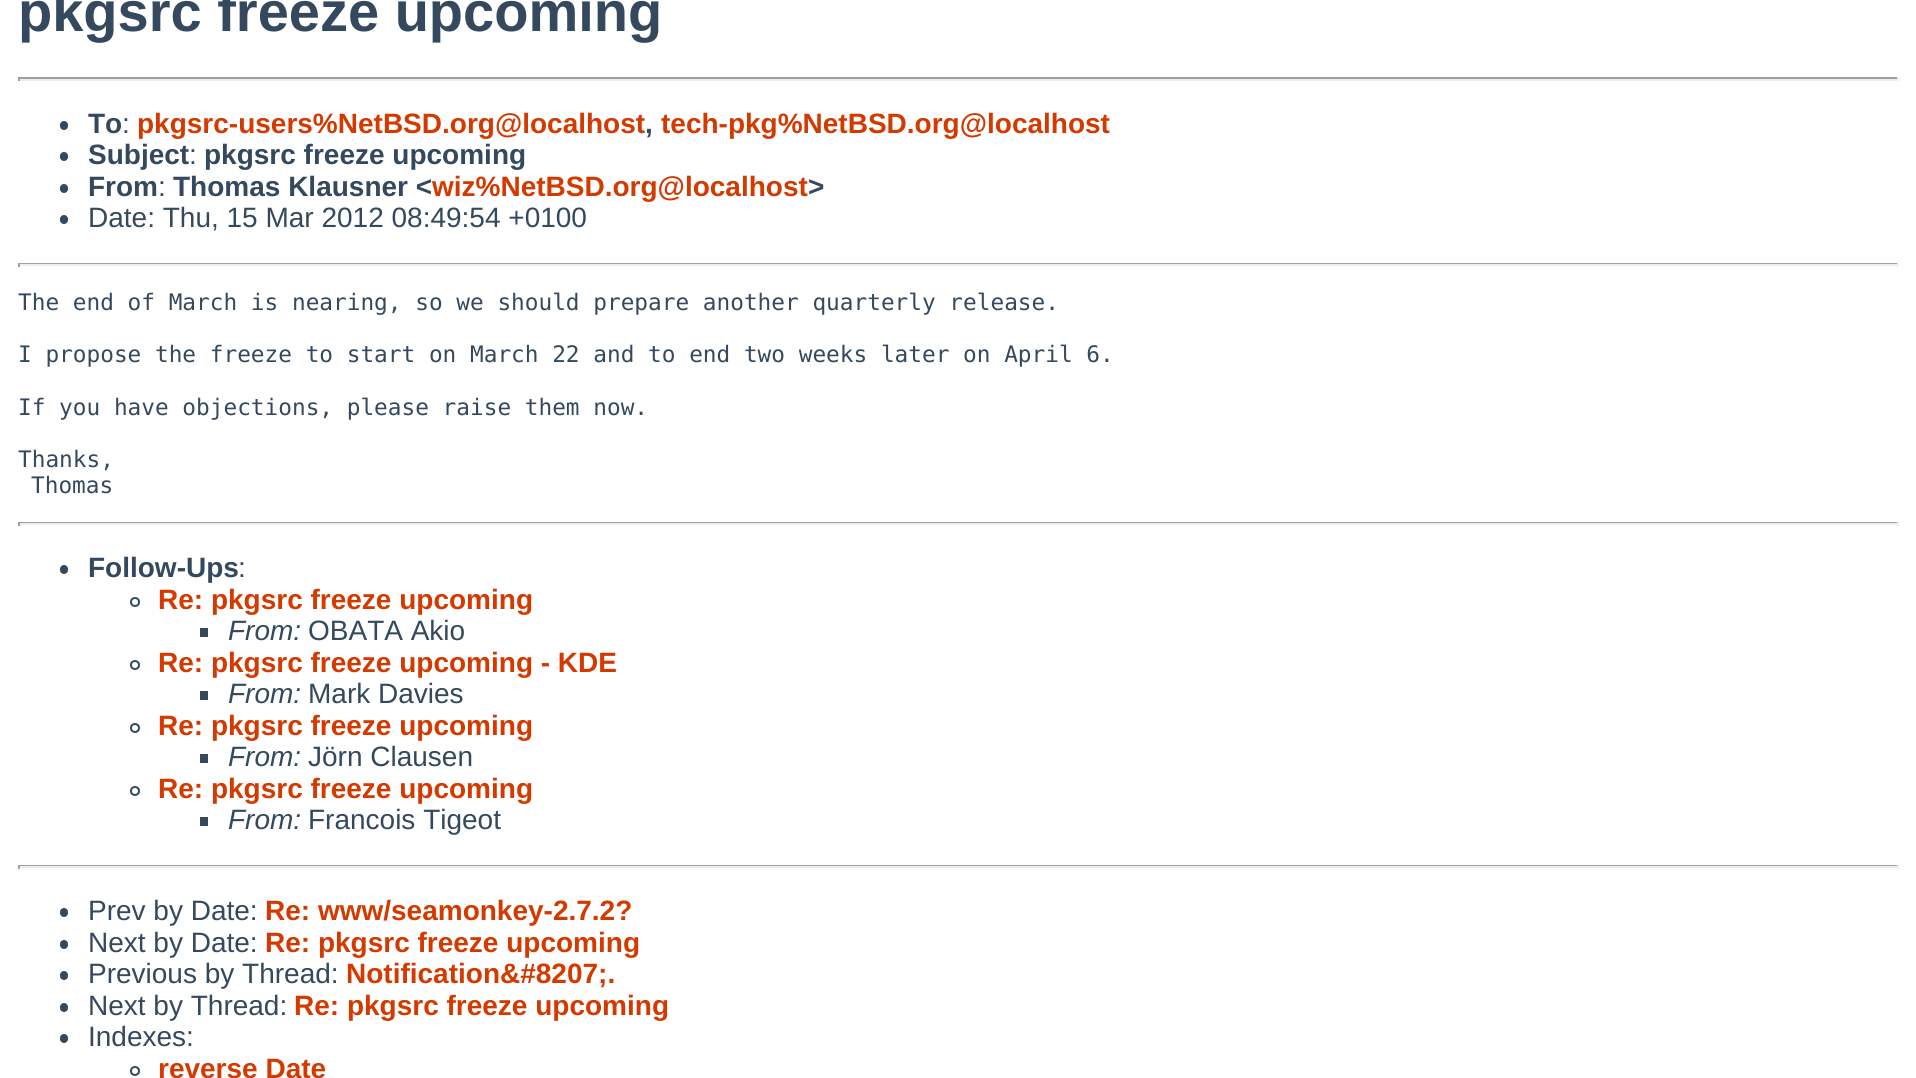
#include <cairo/cairo.h>
#include <math.h>
#include <stddef.h>

static cairo_t *cr;

static void use_color(int r, int g, int b) {
  cairo_set_source_rgb(cr, r / 255.0, g / 255.0, b / 255.0);
}

static void text(double x, double y, const char *s, const char *family, double size, int italic, int bold, int r, int g, int b) {
  cairo_select_font_face(cr, family, italic ? CAIRO_FONT_SLANT_ITALIC : CAIRO_FONT_SLANT_NORMAL,
    bold ? CAIRO_FONT_WEIGHT_BOLD : CAIRO_FONT_WEIGHT_NORMAL);
  cairo_set_font_size(cr, size);
  use_color(r, g, b);
  cairo_move_to(cr, x, y);
  cairo_show_text(cr, s);
}

static void box(double x, double y, double w, double h, int r, int g, int b) {
  use_color(r, g, b);
  cairo_rectangle(cr, x, y, w, h);
  cairo_fill(cr);
}

static void round_rect(double x, double y, double w, double h, double r) {
  cairo_new_sub_path(cr);
  cairo_arc(cr, x + w - r, y + h - r, r, 0, M_PI / 2);
  cairo_arc(cr, x + r, y + h - r, r, M_PI / 2, M_PI);
  cairo_arc(cr, x + r, y + r, r, M_PI, 1.5 * M_PI);
  cairo_arc(cr, x + w - r, y + r, r, 1.5 * M_PI, 2 * M_PI);
  cairo_close_path(cr);
}

static void draw(void) {
  use_color(255, 255, 255);
  cairo_paint(cr);
  box(18, 77, 1881, 2, 159, 159, 159);
  box(1897, 77, 2, 4, 238, 238, 238);
  box(18, 79, 1881, 2, 238, 238, 238);
  box(18, 77, 2, 4, 159, 159, 159);
  use_color(52, 73, 94);
  round_rect(60, 121, 8, 9, 4);
  cairo_fill(cr);
  round_rect(60, 152, 8, 9, 4);
  cairo_fill(cr);
  round_rect(60, 184, 8, 9, 4);
  cairo_fill(cr);
  round_rect(60, 215, 8, 9, 4);
  cairo_fill(cr);
  box(18, 263, 1881, 1, 159, 159, 159);
  box(1897, 263, 2, 4, 238, 238, 238);
  box(18, 264, 1881, 2, 238, 238, 238);
  box(18, 263, 2, 4, 159, 159, 159);
  box(18, 522, 1881, 1, 159, 159, 159);
  box(1897, 522, 2, 4, 238, 238, 238);
  box(18, 523, 1881, 2, 238, 238, 238);
  box(18, 522, 2, 4, 159, 159, 159);
  use_color(52, 73, 94);
  round_rect(60, 565, 8, 9, 4);
  cairo_fill(cr);
  cairo_arc(cr, 135, 602, 4, 0, 2 * M_PI);
  cairo_stroke(cr);
  box(200, 628, 8, 9, 52, 73, 94);
  cairo_arc(cr, 135, 665, 4, 0, 2 * M_PI);
  cairo_stroke(cr);
  box(200, 691, 8, 9, 52, 73, 94);
  cairo_arc(cr, 135, 728, 4, 0, 2 * M_PI);
  cairo_stroke(cr);
  box(200, 754, 8, 9, 52, 73, 94);
  cairo_arc(cr, 135, 791, 4, 0, 2 * M_PI);
  cairo_stroke(cr);
  box(200, 817, 8, 9, 52, 73, 94);
  box(18, 865, 1881, 1, 159, 159, 159);
  box(1897, 865, 2, 4, 238, 238, 238);
  box(18, 866, 1881, 2, 238, 238, 238);
  box(18, 865, 2, 4, 159, 159, 159);
  use_color(52, 73, 94);
  round_rect(60, 908, 8, 9, 4);
  cairo_fill(cr);
  round_rect(60, 940, 8, 9, 4);
  cairo_fill(cr);
  round_rect(60, 971, 8, 9, 4);
  cairo_fill(cr);
  round_rect(60, 1003, 8, 9, 4);
  cairo_fill(cr);
  round_rect(60, 1034, 8, 9, 4);
  cairo_fill(cr);
  cairo_arc(cr, 135, 1071, 4, 0, 2 * M_PI);
  cairo_stroke(cr);
  text(18, 31, "pkgsrc freeze upcoming", "Liberation Sans", 56, 0, 1, 52, 73, 94);
  text(88, 133, "To", "Liberation Sans", 28, 0, 1, 52, 73, 94);
  text(122, 133, ":", "Liberation Sans", 28, 0, 0, 52, 73, 94);
  text(137, 133, "pkgsrc-users%NetBSD.org@localhost", "Liberation Sans", 28, 0, 1, 212, 57, 0);
  text(661, 133, "tech-pkg%NetBSD.org@localhost", "Liberation Sans", 28, 0, 1, 212, 57, 0);
  text(645, 133, ",", "Liberation Sans", 28, 0, 1, 52, 73, 94);
  text(88, 164, "Subject", "Liberation Sans", 28, 0, 1, 52, 73, 94);
  text(189, 164, ":", "Liberation Sans", 28, 0, 0, 52, 73, 94);
  text(204, 164, "pkgsrc freeze upcoming", "Liberation Sans", 28, 0, 1, 52, 73, 94);
  text(88, 196, "From", "Liberation Sans", 28, 0, 1, 52, 73, 94);
  text(158, 196, ":", "Liberation Sans", 28, 0, 0, 52, 73, 94);
  text(173, 196, "Thomas Klausner <", "Liberation Sans", 28, 0, 1, 52, 73, 94);
  text(432, 196, "wiz%NetBSD.org@localhost", "Liberation Sans", 28, 0, 1, 212, 57, 0);
  text(808, 196, ">", "Liberation Sans", 28, 0, 1, 52, 73, 94);
  text(88, 227, "Date: Thu, 15 Mar 2012 08:49:54 +0100", "Liberation Sans", 28, 0, 0, 52, 73, 94);
  text(18, 310, "The end of March is nearing, so we should prepare another quarterly release.", "DejaVu Sans Mono", 22.75, 0, 0, 52, 73, 94);
  text(18, 362, "I propose the freeze to start on March 22 and to end two weeks later on April 6.", "DejaVu Sans Mono", 22.75, 0, 0, 52, 73, 94);
  text(18, 415, "If you have objections, please raise them now.", "DejaVu Sans Mono", 22.75, 0, 0, 52, 73, 94);
  text(18, 467, "Thanks,", "DejaVu Sans Mono", 22.75, 0, 0, 52, 73, 94);
  text(31, 493, "Thomas", "DejaVu Sans Mono", 22.75, 0, 0, 52, 73, 94);
  text(88, 577, "Follow-Ups", "Liberation Sans", 28, 0, 1, 52, 73, 94);
  text(238, 577, ":", "Liberation Sans", 28, 0, 0, 52, 73, 94);
  text(158, 609, "Re: pkgsrc freeze upcoming", "Liberation Sans", 28, 0, 1, 212, 57, 0);
  text(228, 640, "From:", "Liberation Sans", 28, 1, 0, 52, 73, 94);
  text(308, 640, "OBATA Akio", "Liberation Sans", 28, 0, 0, 52, 73, 94);
  text(158, 672, "Re: pkgsrc freeze upcoming - KDE", "Liberation Sans", 28, 0, 1, 212, 57, 0);
  text(228, 703, "From:", "Liberation Sans", 28, 1, 0, 52, 73, 94);
  text(308, 703, "Mark Davies", "Liberation Sans", 28, 0, 0, 52, 73, 94);
  text(158, 735, "Re: pkgsrc freeze upcoming", "Liberation Sans", 28, 0, 1, 212, 57, 0);
  text(228, 766, "From:", "Liberation Sans", 28, 1, 0, 52, 73, 94);
  text(308, 766, "Jörn Clausen", "Liberation Sans", 28, 0, 0, 52, 73, 94);
  text(158, 798, "Re: pkgsrc freeze upcoming", "Liberation Sans", 28, 0, 1, 212, 57, 0);
  text(228, 829, "From:", "Liberation Sans", 28, 1, 0, 52, 73, 94);
  text(308, 829, "Francois Tigeot", "Liberation Sans", 28, 0, 0, 52, 73, 94);
  text(88, 920, "Prev by Date:", "Liberation Sans", 28, 0, 0, 52, 73, 94);
  text(265, 920, "Re: www/seamonkey-2.7.2?", "Liberation Sans", 28, 0, 1, 212, 57, 0);
  text(88, 952, "Next by Date:", "Liberation Sans", 28, 0, 0, 52, 73, 94);
  text(265, 952, "Re: pkgsrc freeze upcoming", "Liberation Sans", 28, 0, 1, 212, 57, 0);
  text(88, 983, "Previous by Thread:", "Liberation Sans", 28, 0, 0, 52, 73, 94);
  text(346, 983, "Notification&#8207;.", "Liberation Sans", 28, 0, 1, 212, 57, 0);
  text(88, 1015, "Next by Thread:", "Liberation Sans", 28, 0, 0, 52, 73, 94);
  text(294, 1015, "Re: pkgsrc freeze upcoming", "Liberation Sans", 28, 0, 1, 212, 57, 0);
  text(88, 1046, "Indexes:", "Liberation Sans", 28, 0, 0, 52, 73, 94);
  text(158, 1078, "reverse Date", "Liberation Sans", 28, 0, 1, 212, 57, 0);
}

int main(void) {
  cairo_surface_t *surface = cairo_image_surface_create(CAIRO_FORMAT_RGB24, 1916, 1078);
  cr = cairo_create(surface);
  cairo_font_options_t *options = cairo_font_options_create();
  cairo_font_options_set_hint_metrics(options, CAIRO_HINT_METRICS_OFF);
  cairo_font_options_set_hint_style(options, CAIRO_HINT_STYLE_NONE);
  cairo_set_font_options(cr, options);
  cairo_set_miter_limit(cr, 4);
  draw();
  cairo_surface_write_to_png(surface, "out.png");
  cairo_font_options_destroy(options);
  cairo_destroy(cr);
  cairo_surface_destroy(surface);
  return 0;
}
